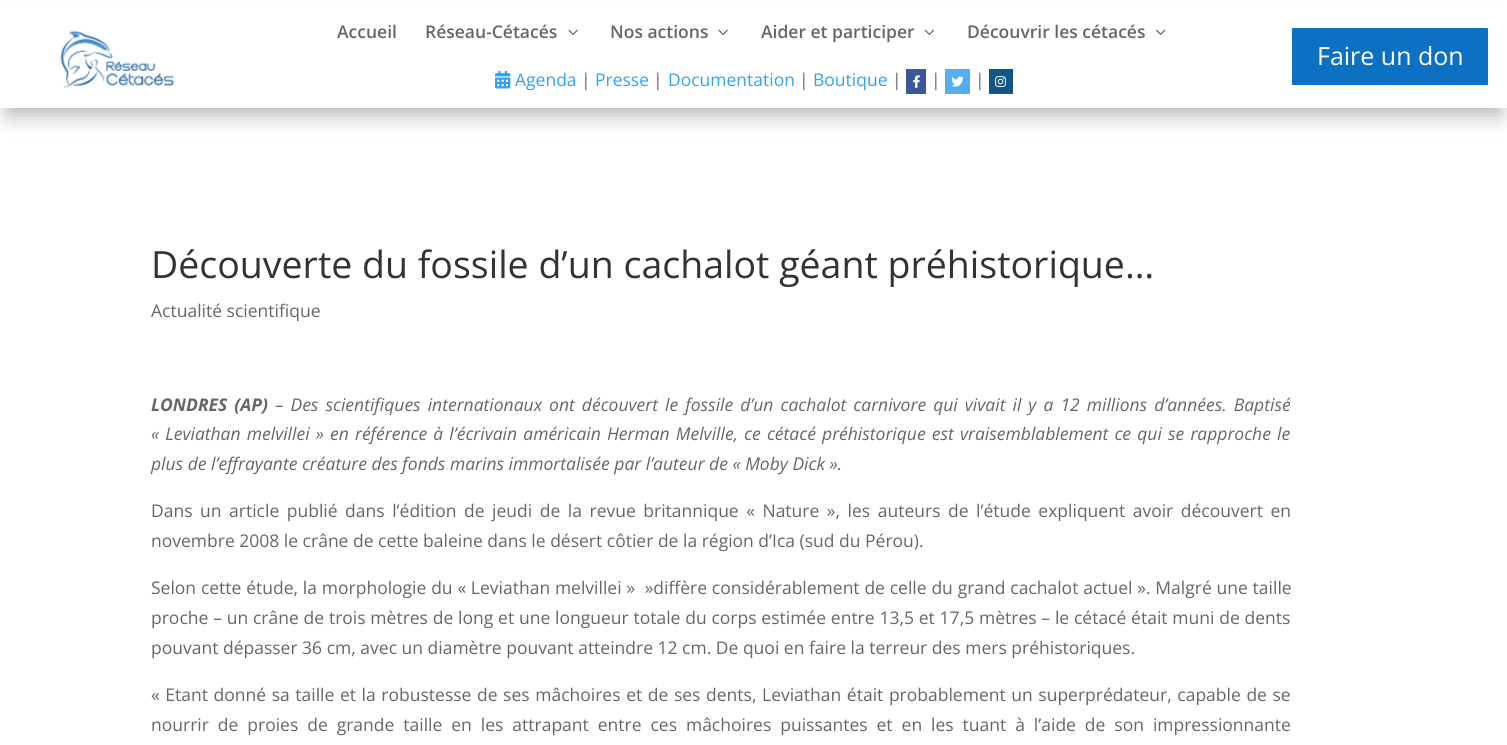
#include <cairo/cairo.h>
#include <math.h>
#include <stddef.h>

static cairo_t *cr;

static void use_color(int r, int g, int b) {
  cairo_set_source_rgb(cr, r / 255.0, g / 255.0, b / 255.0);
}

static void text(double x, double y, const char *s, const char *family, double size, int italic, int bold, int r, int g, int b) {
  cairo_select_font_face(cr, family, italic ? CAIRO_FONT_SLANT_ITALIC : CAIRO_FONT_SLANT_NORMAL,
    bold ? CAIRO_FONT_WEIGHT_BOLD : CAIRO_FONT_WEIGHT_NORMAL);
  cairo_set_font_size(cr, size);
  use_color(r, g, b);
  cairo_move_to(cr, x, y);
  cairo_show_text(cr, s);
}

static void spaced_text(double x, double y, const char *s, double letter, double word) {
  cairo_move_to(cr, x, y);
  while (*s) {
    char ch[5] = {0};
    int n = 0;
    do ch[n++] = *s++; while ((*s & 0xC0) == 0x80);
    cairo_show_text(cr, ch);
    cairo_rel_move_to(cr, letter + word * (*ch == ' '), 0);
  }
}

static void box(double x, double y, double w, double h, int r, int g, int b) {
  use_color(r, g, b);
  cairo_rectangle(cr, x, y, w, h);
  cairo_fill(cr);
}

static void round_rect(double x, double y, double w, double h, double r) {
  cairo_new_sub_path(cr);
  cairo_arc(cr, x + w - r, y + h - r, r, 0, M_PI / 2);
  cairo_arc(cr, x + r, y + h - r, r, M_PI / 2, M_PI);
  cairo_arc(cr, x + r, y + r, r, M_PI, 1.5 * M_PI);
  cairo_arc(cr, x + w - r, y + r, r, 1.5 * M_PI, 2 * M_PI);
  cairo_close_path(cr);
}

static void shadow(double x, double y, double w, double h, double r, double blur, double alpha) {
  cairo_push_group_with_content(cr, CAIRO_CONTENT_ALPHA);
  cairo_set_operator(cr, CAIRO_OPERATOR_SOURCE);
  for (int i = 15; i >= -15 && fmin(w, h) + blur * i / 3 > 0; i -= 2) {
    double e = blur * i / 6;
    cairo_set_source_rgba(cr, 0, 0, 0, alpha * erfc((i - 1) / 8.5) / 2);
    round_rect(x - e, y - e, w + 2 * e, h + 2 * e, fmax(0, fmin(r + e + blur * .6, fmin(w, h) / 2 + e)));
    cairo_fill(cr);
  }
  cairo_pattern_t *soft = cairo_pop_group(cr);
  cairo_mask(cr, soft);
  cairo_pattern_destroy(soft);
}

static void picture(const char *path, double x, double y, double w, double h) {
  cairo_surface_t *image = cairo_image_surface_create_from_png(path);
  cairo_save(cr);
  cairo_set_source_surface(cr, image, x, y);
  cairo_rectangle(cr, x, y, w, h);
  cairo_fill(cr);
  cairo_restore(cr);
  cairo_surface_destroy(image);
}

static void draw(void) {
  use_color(255, 255, 255);
  cairo_paint(cr);
  use_color(0, 0, 0);
  shadow(8, 23, 1492, 92, 0, 11, 0.3);
  box(0, 3, 1507, 105, 255, 255, 255);
  picture("img_01.png", 60, 30, 114, 58);
  picture("img_02.png", 568, 29, 10, 6);
  picture("img_02.png", 718, 29, 10, 6);
  picture("img_03.png", 924, 29, 10, 6);
  picture("img_04.png", 1156, 29, 10, 6);
  picture("img_05.png", 495, 70, 16, 19);
  box(906, 69, 20, 25, 59, 89, 152);
  picture("img_06.png", 913, 75, 7, 13);
  box(945, 69, 25, 25, 85, 172, 238);
  picture("img_07.png", 951, 76, 13, 11);
  box(989, 69, 24, 25, 18, 86, 136);
  picture("img_08.png", 995, 76, 11, 11);
  use_color(12, 113, 195);
  round_rect(1290.5, 26.5, 199, 60, 2.5);
  cairo_fill_preserve(cr);
  use_color(255, 255, 255);
  cairo_set_line_width(cr, 3);
  cairo_stroke(cr);
  text(337, 38, "Accueil", "Open Sans SemiBold", 17.5, 0, 0, 102, 102, 102);
  text(425, 38, "Réseau-Cétacés", "Open Sans SemiBold", 17.5, 0, 0, 102, 102, 102);
  text(610, 38, "Nos actions", "Open Sans SemiBold", 17.5, 0, 0, 102, 102, 102);
  text(761, 38, "Aider et participer", "Open Sans SemiBold", 17.5, 0, 0, 102, 102, 102);
  text(967, 38, "Découvrir les cétacés", "Open Sans SemiBold", 17.5, 0, 0, 102, 102, 102);
  text(515, 86, "Agenda", "Open Sans", 17.5, 0, 0, 46, 163, 242);
  text(581, 86, "|", "Open Sans", 17.5, 0, 0, 102, 102, 102);
  text(595, 86, "Presse", "Open Sans", 17.5, 0, 0, 46, 163, 242);
  text(653, 86, "|", "Open Sans", 17.5, 0, 0, 102, 102, 102);
  text(668, 86, "Documentation", "Open Sans", 17.5, 0, 0, 46, 163, 242);
  text(799, 86, "|", "Open Sans", 17.5, 0, 0, 102, 102, 102);
  text(813, 86, "Boutique", "Open Sans", 17.5, 0, 0, 46, 163, 242);
  text(892, 86, "|", "Open Sans", 17.5, 0, 0, 102, 102, 102);
  text(931, 86, "|", "Open Sans", 17.5, 0, 0, 102, 102, 102);
  text(975, 86, "|", "Open Sans", 17.5, 0, 0, 102, 102, 102);
  text(1317, 65, "Faire un don", "Open Sans", 25, 0, 0, 255, 255, 255);
  text(151, 278, "Découverte du fossile d’un cachalot géant préhistorique…", "Open Sans", 37.5, 0, 0, 51, 51, 51);
  text(151, 317, "Actualité scientifique", "Open Sans", 17.5, 0, 0, 102, 102, 102);
  cairo_select_font_face(cr, "Open Sans", CAIRO_FONT_SLANT_ITALIC, CAIRO_FONT_WEIGHT_BOLD);
  spaced_text(151, 411, "LONDRES (AP)", 0, 2.5);
  cairo_select_font_face(cr, "Open Sans", CAIRO_FONT_SLANT_ITALIC, CAIRO_FONT_WEIGHT_NORMAL);
  spaced_text(275, 411, "– Des scientifiques internationaux ont découvert le fossile d’un cachalot carnivore qui vivait il y a 12 millions d’années. Baptisé", 0, 2.5);
  spaced_text(151, 440, "« Leviathan melvillei » en référence à l’écrivain américain Herman Melville, ce cétacé préhistorique est vraisemblablement ce qui se rapproche le", 0, 1.6);
  text(151, 470, "plus de l’effrayante créature des fonds marins immortalisée par l’auteur de « Moby Dick ».", "Open Sans", 17.5, 1, 0, 102, 102, 102);
  cairo_select_font_face(cr, "Open Sans", CAIRO_FONT_SLANT_NORMAL, CAIRO_FONT_WEIGHT_NORMAL);
  spaced_text(151, 517, "Dans un article publié dans l’édition de jeudi de la revue britannique « Nature », les auteurs de l’étude expliquent avoir découvert en", 0, 3);
  text(151, 547, "novembre 2008 le crâne de cette baleine dans le désert côtier de la région d’Ica (sud du Pérou).", "Open Sans", 17.5, 0, 0, 102, 102, 102);
  spaced_text(151, 594, "Selon cette étude, la morphologie du « Leviathan melvillei »  »diffère considérablement de celle du grand cachalot actuel ». Malgré une taille", 0, 0.25);
  spaced_text(151, 624, "proche – un crâne de trois mètres de long et une longueur totale du corps estimée entre 13,5 et 17,5 mètres – le cétacé était muni de dents", 0, 0.25);
  text(151, 654, "pouvant dépasser 36 cm, avec un diamètre pouvant atteindre 12 cm. De quoi en faire la terreur des mers préhistoriques.", "Open Sans", 17.5, 0, 0, 102, 102, 102);
  spaced_text(151, 701, "« Etant donné sa taille et la robustesse de ses mâchoires et de ses dents, Leviathan était probablement un superprédateur, capable de se", 0, 1.05);
  spaced_text(151, 731, "nourrir de proies de grande taille en les attrapant entre ces mâchoires puissantes et en les tuant à l’aide de son impressionnante", 0, 4.4);
}

int main(void) {
  cairo_surface_t *surface = cairo_image_surface_create(CAIRO_FORMAT_RGB24, 1507, 745);
  cr = cairo_create(surface);
  cairo_font_options_t *options = cairo_font_options_create();
  cairo_font_options_set_hint_metrics(options, CAIRO_HINT_METRICS_OFF);
  cairo_font_options_set_hint_style(options, CAIRO_HINT_STYLE_NONE);
  cairo_set_font_options(cr, options);
  cairo_set_miter_limit(cr, 4);
  draw();
  cairo_surface_write_to_png(surface, "out.png");
  cairo_font_options_destroy(options);
  cairo_destroy(cr);
  cairo_surface_destroy(surface);
  return 0;
}
